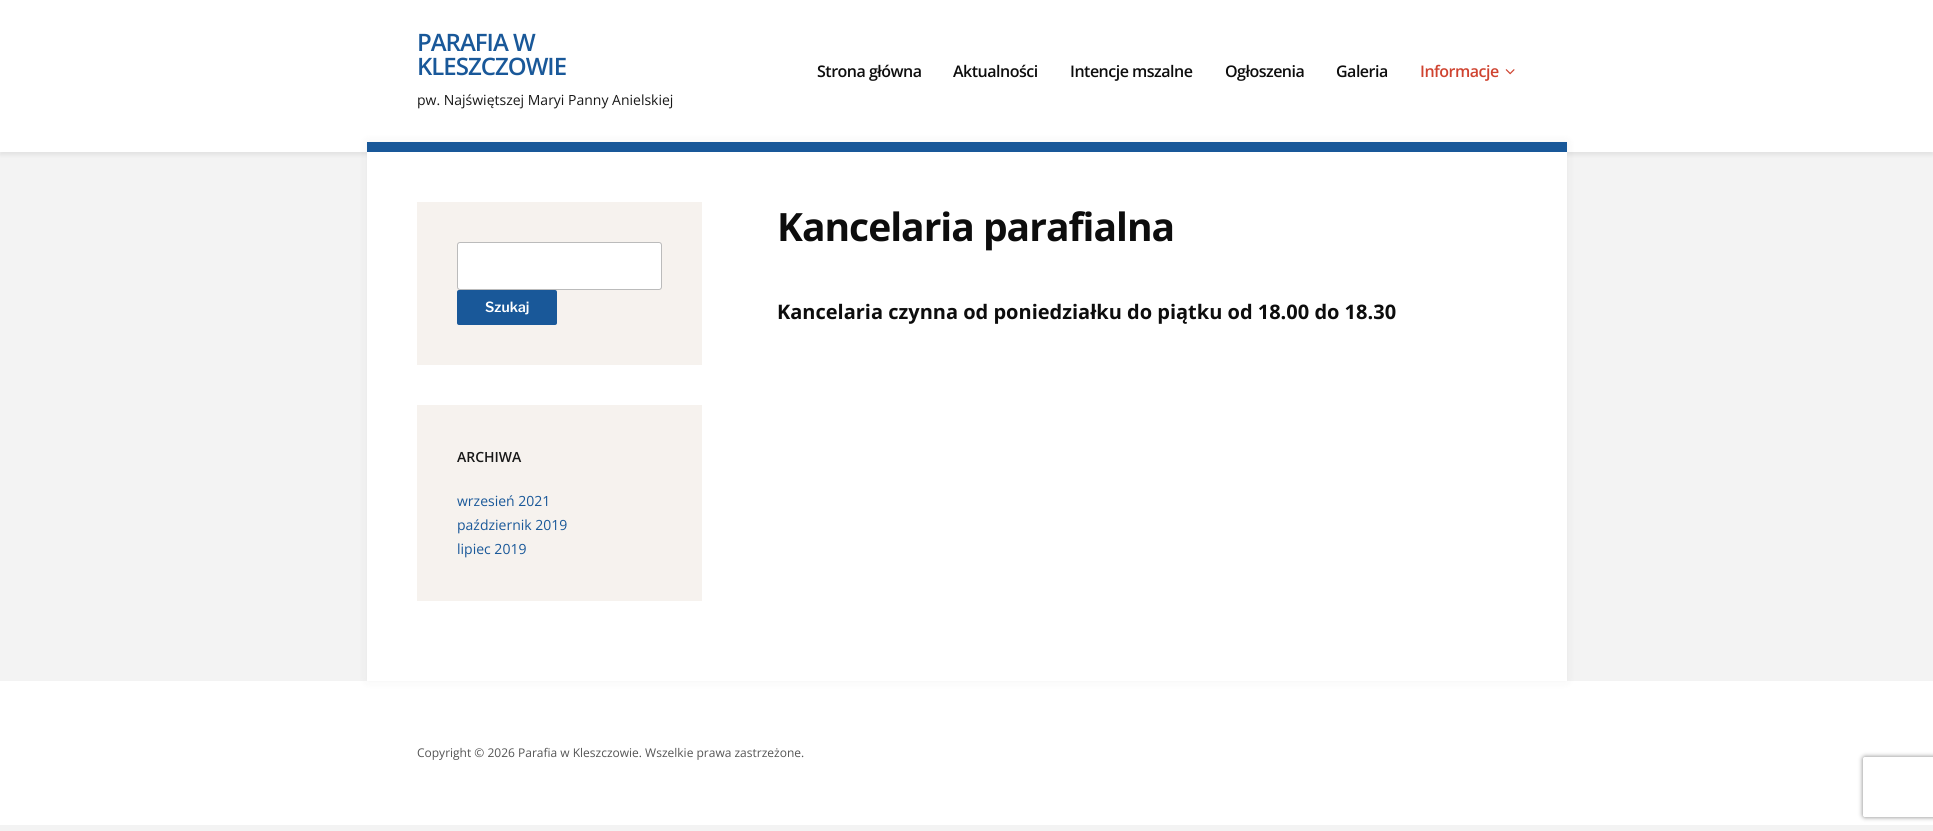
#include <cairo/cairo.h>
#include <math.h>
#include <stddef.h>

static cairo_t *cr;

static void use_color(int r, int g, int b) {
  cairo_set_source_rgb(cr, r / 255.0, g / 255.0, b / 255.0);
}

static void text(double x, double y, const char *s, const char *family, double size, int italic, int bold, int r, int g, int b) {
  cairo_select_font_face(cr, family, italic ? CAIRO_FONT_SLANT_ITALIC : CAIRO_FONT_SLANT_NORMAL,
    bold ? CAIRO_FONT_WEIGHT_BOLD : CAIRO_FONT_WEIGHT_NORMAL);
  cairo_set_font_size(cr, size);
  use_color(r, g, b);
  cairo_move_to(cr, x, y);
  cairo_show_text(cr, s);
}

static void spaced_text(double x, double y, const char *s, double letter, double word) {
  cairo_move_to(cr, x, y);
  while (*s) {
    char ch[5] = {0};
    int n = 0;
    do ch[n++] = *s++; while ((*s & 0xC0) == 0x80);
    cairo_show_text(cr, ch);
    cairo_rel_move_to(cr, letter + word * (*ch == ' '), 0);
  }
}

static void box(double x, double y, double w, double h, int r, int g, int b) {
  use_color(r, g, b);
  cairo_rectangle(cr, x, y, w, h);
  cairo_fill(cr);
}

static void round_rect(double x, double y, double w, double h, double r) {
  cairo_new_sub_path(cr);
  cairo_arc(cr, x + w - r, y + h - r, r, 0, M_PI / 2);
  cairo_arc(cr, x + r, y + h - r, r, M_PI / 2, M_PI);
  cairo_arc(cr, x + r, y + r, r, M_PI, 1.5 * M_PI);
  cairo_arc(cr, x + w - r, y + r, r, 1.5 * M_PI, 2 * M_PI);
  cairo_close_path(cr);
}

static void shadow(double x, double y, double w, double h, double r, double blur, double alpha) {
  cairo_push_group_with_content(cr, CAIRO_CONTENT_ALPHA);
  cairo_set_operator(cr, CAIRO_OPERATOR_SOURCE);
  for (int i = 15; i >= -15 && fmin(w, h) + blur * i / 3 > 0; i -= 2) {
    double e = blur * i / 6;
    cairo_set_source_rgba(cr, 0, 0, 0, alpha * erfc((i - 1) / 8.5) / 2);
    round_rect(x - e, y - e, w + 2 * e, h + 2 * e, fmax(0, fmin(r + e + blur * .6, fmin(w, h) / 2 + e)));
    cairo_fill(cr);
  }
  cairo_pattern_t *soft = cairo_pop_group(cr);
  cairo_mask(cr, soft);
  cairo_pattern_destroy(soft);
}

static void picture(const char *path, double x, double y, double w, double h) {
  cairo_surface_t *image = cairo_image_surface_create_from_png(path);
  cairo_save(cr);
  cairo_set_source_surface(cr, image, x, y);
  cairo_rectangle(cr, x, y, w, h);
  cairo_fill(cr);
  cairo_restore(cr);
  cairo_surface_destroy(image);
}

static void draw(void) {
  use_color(243, 243, 243);
  cairo_paint(cr);
  use_color(0, 0, 0);
  shadow(0, 3, 1933, 152, 0, 2, 0.07);
  box(0, 0, 1933, 152, 255, 255, 255);
  picture("img_01.png", 1505, 69, 10, 6);
  box(0, 681, 1933, 144, 255, 255, 255);
  use_color(12, 12, 12);
  shadow(367, 142, 1200, 539, 0, 5, 0.05);
  box(367, 152, 1200, 529, 255, 255, 255);
  box(367, 142, 1200, 10, 25, 88, 153);
  box(417, 202, 285, 163, 246, 242, 238);
  use_color(255, 255, 255);
  round_rect(457.5, 242.5, 204, 47, 2.5);
  cairo_fill_preserve(cr);
  use_color(187, 187, 187);
  cairo_set_line_width(cr, 1);
  cairo_stroke(cr);
  use_color(25, 88, 153);
  round_rect(457, 290, 100, 35, 2);
  cairo_fill(cr);
  box(417, 405, 285, 196, 246, 242, 238);
  cairo_save(cr);
  cairo_set_fill_rule(cr, CAIRO_FILL_RULE_EVEN_ODD);
  cairo_new_path(cr);
  cairo_move_to(cr, 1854, 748);
  cairo_line_to(cr, 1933, 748);
  cairo_line_to(cr, 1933, 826);
  cairo_line_to(cr, 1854, 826);
  cairo_close_path(cr);
  cairo_move_to(cr, 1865, 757);
  cairo_line_to(cr, 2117, 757);
  cairo_curve_to(cr, 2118, 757, 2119, 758, 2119, 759);
  cairo_line_to(cr, 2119, 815);
  cairo_curve_to(cr, 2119, 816, 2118, 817, 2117, 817);
  cairo_line_to(cr, 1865, 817);
  cairo_curve_to(cr, 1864, 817, 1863, 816, 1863, 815);
  cairo_line_to(cr, 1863, 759);
  cairo_curve_to(cr, 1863, 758, 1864, 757, 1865, 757);
  cairo_close_path(cr);
  cairo_clip(cr);
  use_color(128, 128, 128);
  shadow(1863, 757, 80, 60, 2, 2.5, 1);
  cairo_restore(cr);
  cairo_select_font_face(cr, "Open Sans SemiBold", CAIRO_FONT_SLANT_NORMAL, CAIRO_FONT_WEIGHT_NORMAL);
  cairo_set_font_size(cr, 24);
  use_color(25, 88, 153);
  spaced_text(417, 51, "PARAFIA W", -1, 0);
  spaced_text(417, 75, "KLESZCZOWIE", -1, 0);
  text(417, 105, "pw. Najświętszej Maryi Panny Anielskiej", "Open Sans", 14, 0, 0, 24, 24, 24);
  cairo_select_font_face(cr, "Open Sans SemiBold", CAIRO_FONT_SLANT_NORMAL, CAIRO_FONT_WEIGHT_NORMAL);
  cairo_set_font_size(cr, 16);
  use_color(13, 13, 13);
  spaced_text(817, 77, "Strona główna", -0.5, 0);
  spaced_text(953, 77, "Aktualności", -0.5, 0);
  spaced_text(1070, 77, "Intencje mszalne", -0.5, 0);
  spaced_text(1225, 77, "Ogłoszenia", -0.5, 0);
  spaced_text(1336, 77, "Galeria", -0.5, 0);
  use_color(207, 67, 48);
  spaced_text(1420, 77, "Informacje", -0.5, 0);
  cairo_select_font_face(cr, "Open Sans", CAIRO_FONT_SLANT_NORMAL, CAIRO_FONT_WEIGHT_BOLD);
  cairo_set_font_size(cr, 39);
  use_color(13, 13, 13);
  spaced_text(777, 241, "Kancelaria parafialna", -1, 0);
  text(777, 319, "Kancelaria czynna od poniedziałku do piątku od 18.00 do 18.30", "Open Sans", 20, 0, 1, 13, 13, 13);
  text(485, 312, "Szukaj", "Libre Franklin SemiBold", 14, 0, 0, 255, 255, 255);
  text(457, 462, "ARCHIWA", "Open Sans SemiBold", 14, 0, 0, 24, 24, 24);
  text(457, 506, "wrzesień 2021", "Open Sans", 14, 0, 0, 25, 88, 153);
  text(457, 530, "październik 2019", "Open Sans", 14, 0, 0, 25, 88, 153);
  text(457, 554, "lipiec 2019", "Open Sans", 14, 0, 0, 25, 88, 153);
  text(417, 757, "Copyright © 2026 Parafia w Kleszczowie. Wszelkie prawa zastrzeżone.", "Open Sans", 12, 0, 0, 85, 85, 85);
}

int main(void) {
  cairo_surface_t *surface = cairo_image_surface_create(CAIRO_FORMAT_RGB24, 1933, 831);
  cr = cairo_create(surface);
  cairo_font_options_t *options = cairo_font_options_create();
  cairo_font_options_set_hint_metrics(options, CAIRO_HINT_METRICS_OFF);
  cairo_font_options_set_hint_style(options, CAIRO_HINT_STYLE_NONE);
  cairo_set_font_options(cr, options);
  cairo_set_miter_limit(cr, 4);
  draw();
  cairo_surface_write_to_png(surface, "out.png");
  cairo_font_options_destroy(options);
  cairo_destroy(cr);
  cairo_surface_destroy(surface);
  return 0;
}
